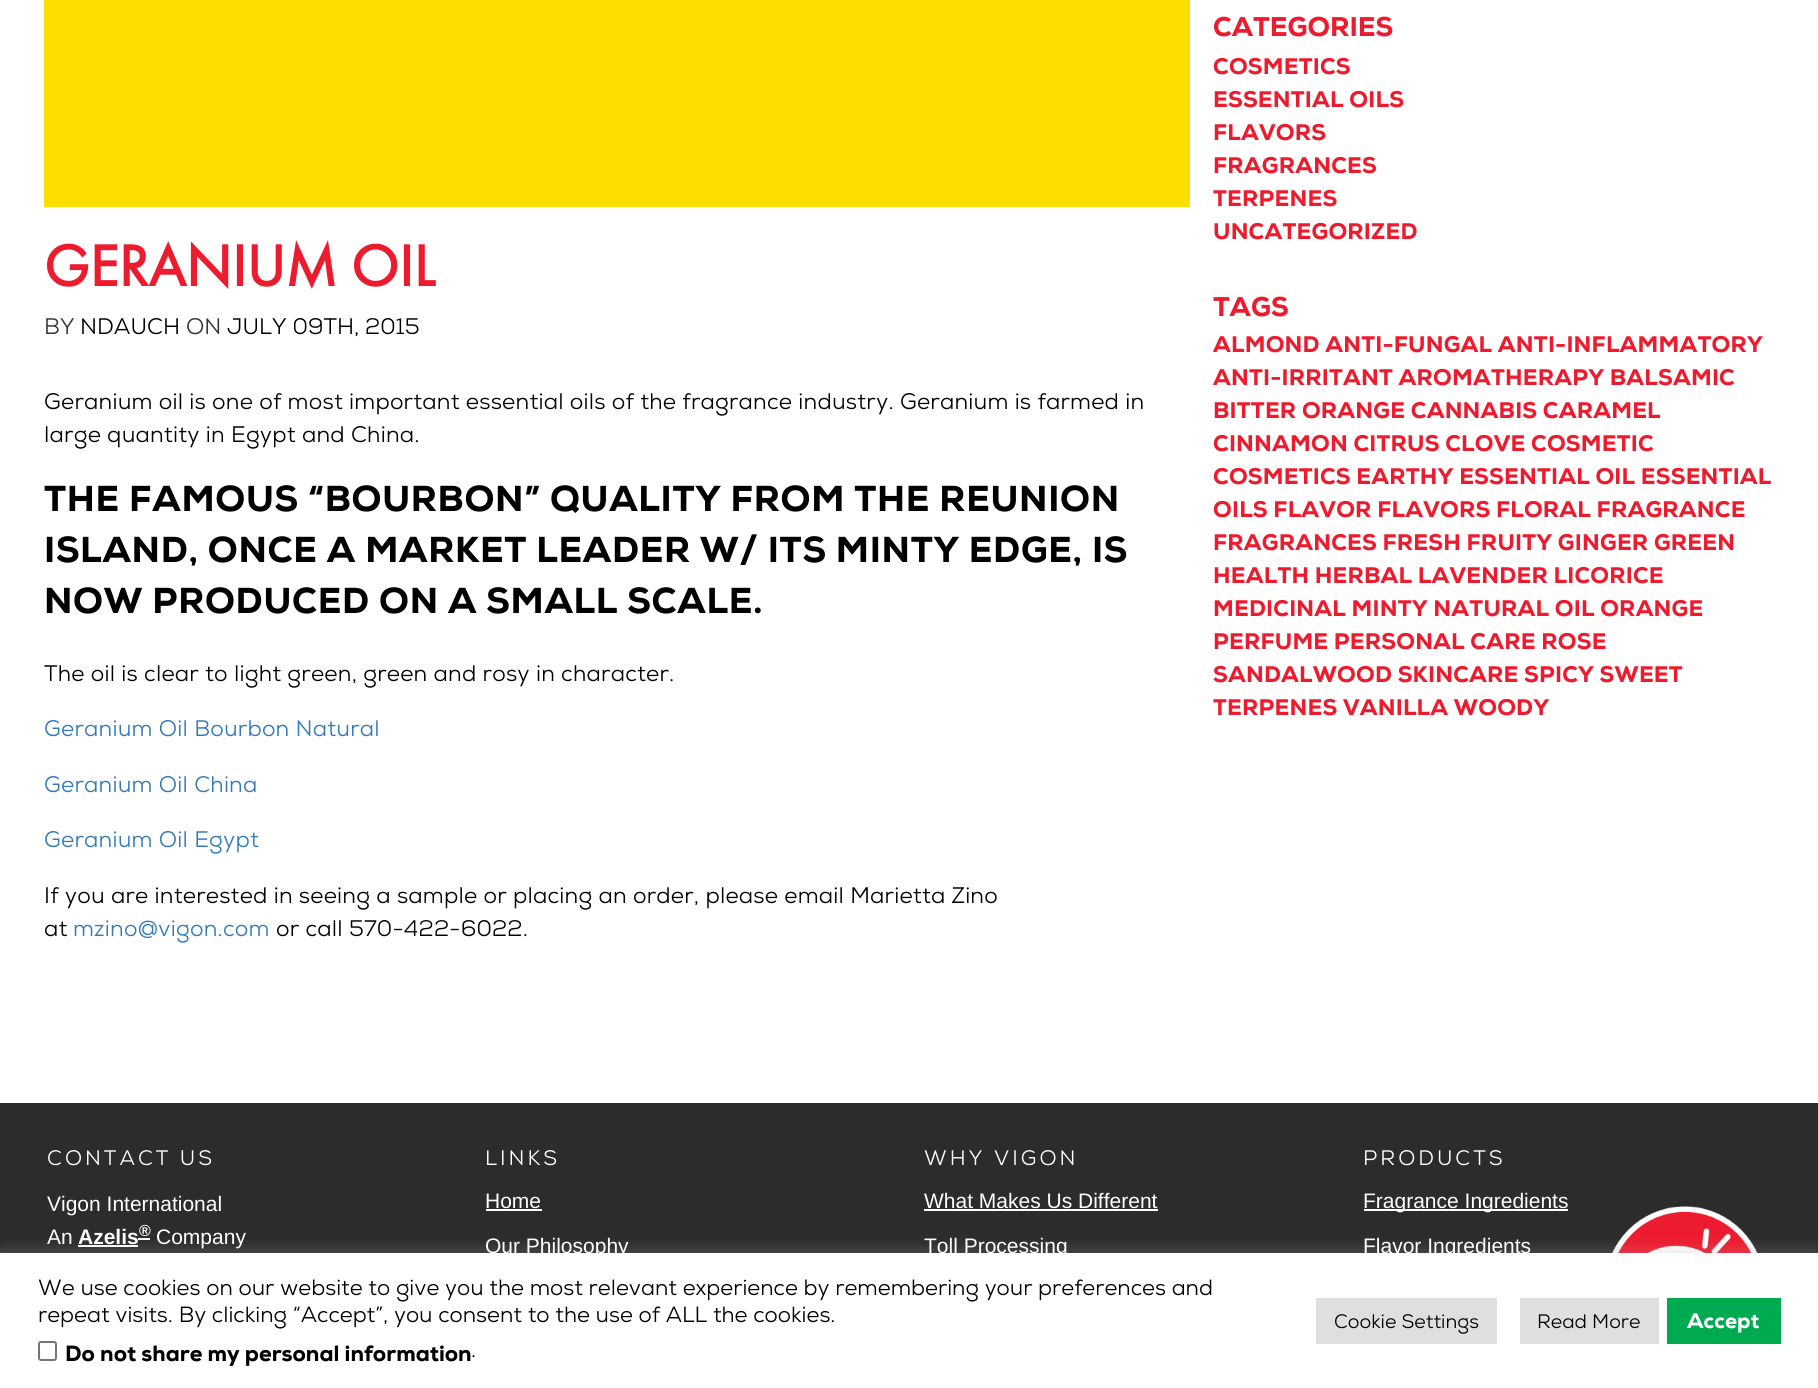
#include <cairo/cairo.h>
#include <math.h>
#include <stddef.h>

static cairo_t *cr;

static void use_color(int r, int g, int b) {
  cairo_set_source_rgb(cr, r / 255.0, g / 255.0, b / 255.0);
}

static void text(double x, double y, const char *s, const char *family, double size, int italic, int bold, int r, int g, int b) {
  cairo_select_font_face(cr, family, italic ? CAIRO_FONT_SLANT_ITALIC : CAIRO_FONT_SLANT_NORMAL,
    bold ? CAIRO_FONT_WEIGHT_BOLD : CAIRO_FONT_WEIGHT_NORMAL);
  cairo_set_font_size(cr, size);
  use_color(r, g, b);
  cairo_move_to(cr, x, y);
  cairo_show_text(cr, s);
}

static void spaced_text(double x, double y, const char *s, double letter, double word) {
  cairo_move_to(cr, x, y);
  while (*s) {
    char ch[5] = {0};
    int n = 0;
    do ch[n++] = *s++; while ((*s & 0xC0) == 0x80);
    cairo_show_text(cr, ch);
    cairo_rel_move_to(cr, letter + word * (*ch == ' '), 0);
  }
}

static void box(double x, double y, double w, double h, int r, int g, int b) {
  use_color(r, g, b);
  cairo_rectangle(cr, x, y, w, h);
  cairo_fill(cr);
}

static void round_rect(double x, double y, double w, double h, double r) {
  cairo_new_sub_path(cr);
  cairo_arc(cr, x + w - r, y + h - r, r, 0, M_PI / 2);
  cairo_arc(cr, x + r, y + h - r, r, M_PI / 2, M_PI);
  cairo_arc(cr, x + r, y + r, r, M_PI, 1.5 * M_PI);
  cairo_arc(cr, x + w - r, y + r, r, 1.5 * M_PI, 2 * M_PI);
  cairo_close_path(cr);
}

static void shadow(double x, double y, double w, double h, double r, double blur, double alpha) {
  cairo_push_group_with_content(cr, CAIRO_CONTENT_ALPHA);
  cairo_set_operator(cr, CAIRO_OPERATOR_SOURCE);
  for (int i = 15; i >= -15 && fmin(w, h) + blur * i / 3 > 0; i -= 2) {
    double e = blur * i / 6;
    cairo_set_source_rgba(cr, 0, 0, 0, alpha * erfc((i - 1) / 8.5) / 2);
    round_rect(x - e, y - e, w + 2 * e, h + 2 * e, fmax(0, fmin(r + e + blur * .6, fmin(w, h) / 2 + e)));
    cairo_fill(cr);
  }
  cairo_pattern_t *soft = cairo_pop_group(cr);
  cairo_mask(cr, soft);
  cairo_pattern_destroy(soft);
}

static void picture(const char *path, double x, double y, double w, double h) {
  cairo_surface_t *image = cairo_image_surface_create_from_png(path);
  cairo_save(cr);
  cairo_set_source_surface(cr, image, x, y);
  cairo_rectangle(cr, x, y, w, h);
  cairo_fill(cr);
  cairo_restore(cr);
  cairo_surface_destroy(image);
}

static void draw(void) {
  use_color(255, 255, 255);
  cairo_paint(cr);
  box(44, 0, 1146, 207, 254, 221, 0);
  box(0, 1103, 1818, 150, 44, 44, 44);
  box(78, 1245, 60, 2, 255, 255, 255);
  box(138, 1238, 12, 2, 255, 255, 255);
  box(486, 1209, 56, 2, 255, 255, 255);
  box(924, 1209, 234, 2, 255, 255, 255);
  box(1364, 1209, 204, 2, 255, 255, 255);
  picture("img_01.png", 1612, 1206, 146, 47);
  use_color(172, 171, 171);
  shadow(0, 1251, 1818, 137, 0, 7.5, 0.3);
  box(0, 1253, 1818, 135, 255, 255, 255);
  round_rect(39, 1342, 17, 18, 2);
  use_color(118, 118, 118);
  cairo_stroke(cr);
  box(1316, 1298, 181, 46, 222, 223, 224);
  box(1520, 1298, 139, 46, 222, 223, 224);
  box(1667, 1298, 114, 46, 0, 170, 81);
  text(44, 286, "GERANIUM OIL", "Futura PT", 60, 0, 1, 237, 27, 46);
  text(44, 334, "BY", "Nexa", 22.5, 0, 0, 51, 51, 51);
  text(80, 334, "NDAUCH", "Nexa", 22.5, 0, 0, 0, 0, 0);
  text(186, 334, "ON", "Nexa", 22.5, 0, 0, 51, 51, 51);
  text(227, 334, "JULY 09TH, 2015", "Nexa", 22.5, 0, 0, 0, 0, 0);
  spaced_text(44, 409, "Geranium oil is one of most important essential oils of the fragrance industry. Geranium is farmed in", 0.22, 0);
  spaced_text(44, 442, "large quantity in Egypt and China.", 0.22, 0);
  cairo_select_font_face(cr, "Nexa Black", CAIRO_FONT_SLANT_NORMAL, CAIRO_FONT_WEIGHT_NORMAL);
  cairo_set_font_size(cr, 36);
  spaced_text(44, 511, "THE FAMOUS “BOURBON” QUALITY FROM THE REUNION", 0.7, 0);
  spaced_text(44, 562, "ISLAND, ONCE A MARKET LEADER W/ ITS MINTY EDGE, IS", 0.7, 0);
  spaced_text(44, 613, "NOW PRODUCED ON A SMALL SCALE.", 0.7, 0);
  cairo_select_font_face(cr, "Nexa", CAIRO_FONT_SLANT_NORMAL, CAIRO_FONT_WEIGHT_NORMAL);
  cairo_set_font_size(cr, 22.5);
  spaced_text(44, 681, "The oil is clear to light green, green and rosy in character.", 0.22, 0);
  use_color(51, 122, 183);
  spaced_text(44, 736, "Geranium Oil Bourbon Natural", 0.22, 0);
  spaced_text(44, 792, "Geranium Oil China", 0.22, 0);
  spaced_text(44, 847, "Geranium Oil Egypt", 0.22, 0);
  use_color(0, 0, 0);
  spaced_text(44, 903, "If you are interested in seeing a sample or placing an order, please email Marietta Zino", 0.22, 0);
  spaced_text(44, 936, "at", 0.22, 0);
  use_color(51, 122, 183);
  spaced_text(73, 936, "mzino@vigon.com", 0.22, 0);
  use_color(0, 0, 0);
  spaced_text(276, 936, "or call 570-422-6022.", 0.22, 0);
  text(1213, 36, "CATEGORIES", "Nexa Black", 27, 0, 0, 237, 27, 46);
  cairo_set_font_size(cr, 22.5);
  spaced_text(1213, 74, "COSMETICS", 0.22, 0);
  spaced_text(1213, 107, "ESSENTIAL OILS", 0.22, 0);
  spaced_text(1213, 140, "FLAVORS", 0.22, 0);
  spaced_text(1213, 173, "FRAGRANCES", 0.22, 0);
  spaced_text(1213, 206, "TERPENES", 0.22, 0);
  spaced_text(1213, 239, "UNCATEGORIZED", 0.22, 0);
  text(1213, 316, "TAGS", "Nexa Black", 27, 0, 0, 237, 27, 46);
  cairo_set_font_size(cr, 22.5);
  spaced_text(1213, 352, "ALMOND ANTI-FUNGAL ANTI-INFLAMMATORY", 0.22, 0);
  spaced_text(1213, 385, "ANTI-IRRITANT AROMATHERAPY BALSAMIC", 0.22, 0);
  spaced_text(1213, 418, "BITTER ORANGE CANNABIS CARAMEL", 0.22, 0);
  spaced_text(1213, 451, "CINNAMON CITRUS CLOVE COSMETIC", 0.22, 0);
  spaced_text(1213, 484, "COSMETICS EARTHY ESSENTIAL OIL ESSENTIAL", 0.22, 0);
  spaced_text(1213, 517, "OILS FLAVOR FLAVORS FLORAL FRAGRANCE", 0.22, 0);
  spaced_text(1213, 550, "FRAGRANCES FRESH FRUITY GINGER GREEN", 0.22, 0);
  spaced_text(1213, 583, "HEALTH HERBAL LAVENDER LICORICE", 0.22, 0);
  spaced_text(1213, 616, "MEDICINAL MINTY NATURAL OIL ORANGE", 0.22, 0);
  spaced_text(1213, 649, "PERFUME PERSONAL CARE ROSE", 0.22, 0);
  spaced_text(1213, 682, "SANDALWOOD SKINCARE SPICY SWEET", 0.22, 0);
  spaced_text(1213, 715, "TERPENES VANILLA WOODY", 0.22, 0);
  cairo_select_font_face(cr, "Nexa", CAIRO_FONT_SLANT_NORMAL, CAIRO_FONT_WEIGHT_NORMAL);
  cairo_set_font_size(cr, 21);
  use_color(255, 255, 255);
  spaced_text(47, 1165, "CONTACT US", 3, 0);
  text(47, 1211, "Vigon International", "Liberation Sans", 21, 0, 0, 255, 255, 255);
  text(47, 1244, "An", "Liberation Sans", 21, 0, 0, 255, 255, 255);
  text(78, 1244, "Azelis", "Liberation Sans", 21, 0, 1, 255, 255, 255);
  text(139, 1236, "®", "Liberation Sans", 16, 0, 1, 255, 255, 255);
  text(156, 1244, "Company", "Liberation Sans", 21, 0, 0, 255, 255, 255);
  cairo_select_font_face(cr, "Nexa", CAIRO_FONT_SLANT_NORMAL, CAIRO_FONT_WEIGHT_NORMAL);
  spaced_text(485, 1165, "LINKS", 3, 0);
  text(485, 1208, "Home", "Liberation Sans", 21, 0, 0, 255, 255, 255);
  text(485, 1253, "Our Philosophy", "Liberation Sans", 21, 0, 0, 255, 255, 255);
  cairo_select_font_face(cr, "Nexa", CAIRO_FONT_SLANT_NORMAL, CAIRO_FONT_WEIGHT_NORMAL);
  spaced_text(924, 1165, "WHY VIGON", 3, 0);
  text(924, 1208, "What Makes Us Different", "Liberation Sans", 21, 0, 0, 255, 255, 255);
  text(924, 1253, "Toll Processing", "Liberation Sans", 21, 0, 0, 255, 255, 255);
  cairo_select_font_face(cr, "Nexa", CAIRO_FONT_SLANT_NORMAL, CAIRO_FONT_WEIGHT_NORMAL);
  spaced_text(1363, 1165, "PRODUCTS", 3, 0);
  text(1363, 1208, "Fragrance Ingredients", "Liberation Sans", 21, 0, 0, 255, 255, 255);
  text(1363, 1253, "Flavor Ingredients", "Liberation Sans", 21, 0, 0, 255, 255, 255);
  text(38, 1295, "We use cookies on our website to give you the most relevant experience by remembering your preferences and", "Nexa", 22, 0, 0, 0, 0, 0);
  text(38, 1322, "repeat visits. By clicking “Accept”, you consent to the use of ALL the cookies.", "Nexa", 22, 0, 0, 0, 0, 0);
  text(65, 1361, "Do not share my personal information", "Nexa Black", 22, 0, 0, 0, 0, 0);
  text(471, 1357, ".", "Nexa", 22, 0, 0, 0, 0, 0);
  text(1334, 1328, "Cookie Settings", "Nexa", 19.5, 0, 0, 0, 0, 0);
  text(1537, 1328, "Read More", "Nexa", 19.5, 0, 0, 0, 0, 0);
  text(1687, 1328, "Accept", "Nexa Black", 21, 0, 0, 255, 255, 255);
}

int main(void) {
  cairo_surface_t *surface = cairo_image_surface_create(CAIRO_FORMAT_RGB24, 1818, 1388);
  cr = cairo_create(surface);
  cairo_font_options_t *options = cairo_font_options_create();
  cairo_font_options_set_hint_metrics(options, CAIRO_HINT_METRICS_OFF);
  cairo_font_options_set_hint_style(options, CAIRO_HINT_STYLE_NONE);
  cairo_set_font_options(cr, options);
  cairo_set_miter_limit(cr, 4);
  draw();
  cairo_surface_write_to_png(surface, "out.png");
  cairo_font_options_destroy(options);
  cairo_destroy(cr);
  cairo_surface_destroy(surface);
  return 0;
}
